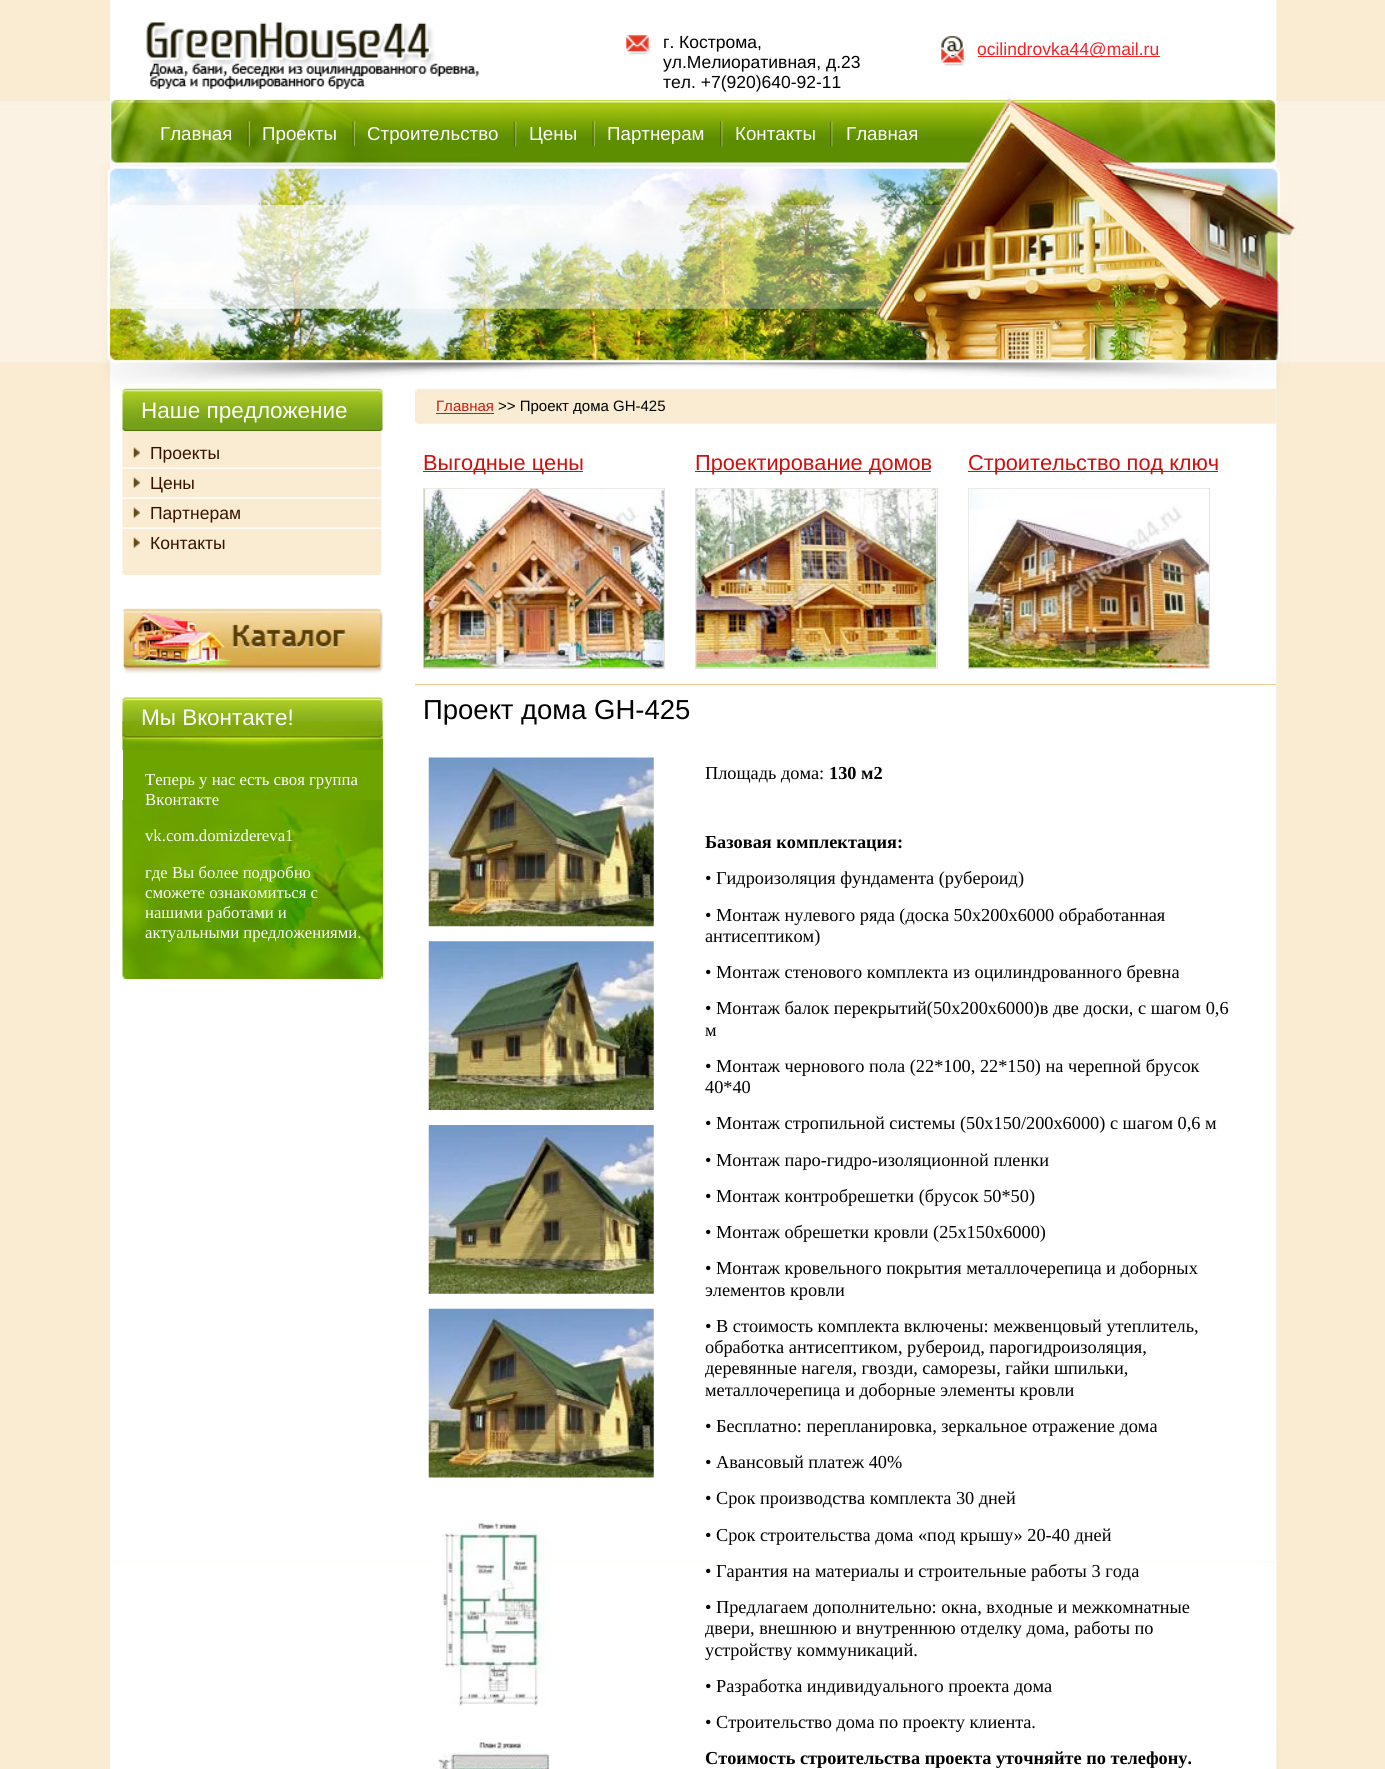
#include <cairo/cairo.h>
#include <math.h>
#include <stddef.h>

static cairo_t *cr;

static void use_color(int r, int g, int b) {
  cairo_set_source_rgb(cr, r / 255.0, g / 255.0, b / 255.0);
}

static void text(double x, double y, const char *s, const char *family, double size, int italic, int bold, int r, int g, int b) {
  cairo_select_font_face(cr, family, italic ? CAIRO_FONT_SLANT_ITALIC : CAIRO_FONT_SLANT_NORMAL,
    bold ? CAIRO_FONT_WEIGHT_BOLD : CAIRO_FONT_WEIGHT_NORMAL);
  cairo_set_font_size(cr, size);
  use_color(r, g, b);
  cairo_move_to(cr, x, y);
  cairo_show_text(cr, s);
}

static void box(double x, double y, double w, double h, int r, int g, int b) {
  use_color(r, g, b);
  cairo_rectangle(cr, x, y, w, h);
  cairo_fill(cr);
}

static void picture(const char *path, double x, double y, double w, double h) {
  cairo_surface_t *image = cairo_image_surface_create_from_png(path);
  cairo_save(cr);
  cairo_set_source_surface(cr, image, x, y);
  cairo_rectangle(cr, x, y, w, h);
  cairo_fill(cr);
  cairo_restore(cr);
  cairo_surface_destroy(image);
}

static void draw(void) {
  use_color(249, 236, 210);
  cairo_paint(cr);
  picture("img_01.png", 110, 490, 1167, 1073);
  picture("img_02.png", 0, 0, 1385, 490);
  picture("img_03.png", 100, 0, 1200, 490);
  picture("img_04.png", 146, 22, 333, 67);
  picture("img_05.png", 626, 34, 25, 21);
  picture("img_06.png", 941, 36, 25, 30);
  box(978, 56, 182, 1, 243, 34, 38);
  picture("img_07.png", 247, 121, 3, 26);
  picture("img_08.png", 352, 121, 3, 26);
  picture("img_09.png", 513, 121, 4, 26);
  picture("img_10.png", 592, 121, 3, 26);
  picture("img_11.png", 720, 121, 3, 26);
  picture("img_11.png", 830, 121, 3, 26);
  picture("img_12.png", 122, 388, 261, 44);
  picture("img_13.png", 122, 431, 260, 144);
  picture("img_14.png", 122, 571, 260, 4);
  picture("img_15.png", 133, 447, 7, 12);
  picture("img_16.png", 122, 467, 259, 2);
  picture("img_15.png", 133, 477, 7, 12);
  picture("img_16.png", 122, 497, 259, 2);
  picture("img_15.png", 133, 507, 7, 12);
  picture("img_16.png", 122, 527, 259, 2);
  picture("img_15.png", 133, 537, 7, 12);
  picture("img_17.png", 122, 608, 261, 71);
  picture("img_18.png", 122, 697, 261, 42);
  picture("img_19.png", 122, 721, 261, 18);
  box(123, 739, 260, 240, 109, 164, 0);
  picture("img_20.png", 122, 800, 261, 179);
  picture("img_21.png", 122, 738, 261, 12);
  picture("img_22.png", 415, 388, 862, 36);
  box(436, 413, 58, 1, 191, 31, 14);
  box(415, 684, 861, 1, 239, 203, 145);
  box(423, 471, 160, 1, 208, 15, 12);
  cairo_rectangle(cr, 423.5, 488.5, 241, 180);
  use_color(230, 227, 222);
  cairo_set_line_width(cr, 1);
  cairo_stroke(cr);
  picture("img_23.png", 423, 488, 241, 180);
  box(695, 471, 236, 1, 208, 15, 12);
  cairo_rectangle(cr, 695.5, 488.5, 242, 180);
  use_color(230, 227, 222);
  cairo_stroke(cr);
  picture("img_24.png", 696, 488, 241, 180);
  box(968, 471, 250, 1, 208, 15, 12);
  cairo_rectangle(cr, 968.5, 488.5, 241, 180);
  use_color(230, 227, 222);
  cairo_stroke(cr);
  picture("img_25.png", 968, 488, 241, 180);
  picture("img_26.png", 428, 757, 226, 170);
  picture("img_27.png", 428, 941, 226, 169);
  picture("img_28.png", 428, 1125, 226, 169);
  picture("img_29.png", 428, 1308, 226, 170);
  picture("img_32.png", 110, 1562, 1167, 1);
  picture("img_33.png", 110, 1562, 1169, 207);
  picture("img_30.png", 432, 1521, 119, 186);
  picture("img_31.png", 438, 1742, 112, 27);
  text(663, 48, "г. Кострома,", "Liberation Sans", 17.5, 0, 0, 0, 0, 0);
  text(663, 68, "ул.Мелиоративная, д.23", "Liberation Sans", 17.5, 0, 0, 0, 0, 0);
  text(663, 88, "тел. +7(920)640-92-11", "Liberation Sans", 17.5, 0, 0, 0, 0, 0);
  text(977, 55, "ocilindrovka44@mail.ru", "Liberation Sans", 17.5, 0, 0, 243, 34, 38);
  text(160, 140, "Главная", "Liberation Sans", 18.75, 0, 0, 255, 255, 255);
  text(262, 140, "Проекты", "Liberation Sans", 18.75, 0, 0, 255, 255, 255);
  text(367, 140, "Строительство", "Liberation Sans", 18.75, 0, 0, 255, 255, 255);
  text(529, 140, "Цены", "Liberation Sans", 18.75, 0, 0, 255, 255, 255);
  text(607, 140, "Партнерам", "Liberation Sans", 18.75, 0, 0, 255, 255, 255);
  text(735, 140, "Контакты", "Liberation Sans", 18.75, 0, 0, 255, 255, 255);
  text(846, 140, "Главная", "Liberation Sans", 18.75, 0, 0, 255, 255, 255);
  text(141, 418, "Наше предложение", "Liberation Sans", 22.5, 0, 0, 255, 255, 255);
  text(150, 459, "Проекты", "Liberation Sans", 17.5, 0, 0, 56, 18, 1);
  text(150, 489, "Цены", "Liberation Sans", 17.5, 0, 0, 56, 18, 1);
  text(150, 519, "Партнерам", "Liberation Sans", 17.5, 0, 0, 56, 18, 1);
  text(150, 549, "Контакты", "Liberation Sans", 17.5, 0, 0, 56, 18, 1);
  text(141, 725, "Мы Вконтакте!", "Liberation Sans", 22.5, 0, 0, 255, 255, 255);
  text(145, 785, "Теперь у нас есть своя группа", "Liberation Serif", 16.7, 0, 0, 255, 255, 255);
  text(145, 805, "Вконтакте", "Liberation Serif", 16.7, 0, 0, 255, 255, 255);
  text(145, 841, "vk.com.domizdereva1", "Liberation Serif", 16.7, 0, 0, 255, 255, 255);
  text(145, 878, "где Вы более подробно", "Liberation Serif", 16.7, 0, 0, 255, 255, 255);
  text(145, 898, "сможете ознакомиться с", "Liberation Serif", 16.7, 0, 0, 255, 255, 255);
  text(145, 918, "нашими работами и", "Liberation Serif", 16.7, 0, 0, 255, 255, 255);
  text(145, 938, "актуальными предложениями.", "Liberation Serif", 16.7, 0, 0, 255, 255, 255);
  text(436, 411, "Главная", "Liberation Sans", 15, 0, 0, 191, 31, 14);
  text(498, 411, ">> Проект дома GH-425", "Liberation Sans", 15, 0, 0, 0, 0, 0);
  text(423, 470, "Выгодные цены", "Liberation Sans", 21.75, 0, 0, 208, 15, 12);
  text(695, 470, "Проектирование домов", "Liberation Sans", 21.75, 0, 0, 208, 15, 12);
  text(968, 470, "Строительство под ключ", "Liberation Sans", 21.75, 0, 0, 208, 15, 12);
  text(423, 719, "Проект дома GH-425", "Liberation Sans", 27.5, 0, 0, 0, 0, 0);
  text(705, 779, "Площадь дома:", "Liberation Serif", 18.3, 0, 0, 0, 0, 0);
  text(829, 779, "130 м2", "Liberation Serif", 18.3, 0, 1, 0, 0, 0);
  text(705, 848, "Базовая комплектация:", "Liberation Serif", 18.3, 0, 1, 0, 0, 0);
  text(705, 884, "• Гидроизоляция фундамента (рубероид)", "Liberation Serif", 18.3, 0, 0, 0, 0, 0);
  text(705, 921, "• Монтаж нулевого ряда (доска 50х200х6000 обработанная", "Liberation Serif", 18.3, 0, 0, 0, 0, 0);
  text(705, 942, "антисептиком)", "Liberation Serif", 18.3, 0, 0, 0, 0, 0);
  text(705, 978, "• Монтаж стенового комплекта из оцилиндрованного бревна", "Liberation Serif", 18.3, 0, 0, 0, 0, 0);
  text(705, 1014, "• Монтаж балок перекрытий(50х200х6000)в две доски, с шагом 0,6", "Liberation Serif", 18.3, 0, 0, 0, 0, 0);
  text(705, 1036, "м", "Liberation Serif", 18.3, 0, 0, 0, 0, 0);
  text(705, 1072, "• Монтаж чернового пола (22*100, 22*150) на черепной брусок", "Liberation Serif", 18.3, 0, 0, 0, 0, 0);
  text(705, 1093, "40*40", "Liberation Serif", 18.3, 0, 0, 0, 0, 0);
  text(705, 1129, "• Монтаж стропильной системы (50х150/200х6000) с шагом 0,6 м", "Liberation Serif", 18.3, 0, 0, 0, 0, 0);
  text(705, 1166, "• Монтаж паро-гидро-изоляционной пленки", "Liberation Serif", 18.3, 0, 0, 0, 0, 0);
  text(705, 1202, "• Монтаж контробрешетки (брусок 50*50)", "Liberation Serif", 18.3, 0, 0, 0, 0, 0);
  text(705, 1238, "• Монтаж обрешетки кровли (25х150х6000)", "Liberation Serif", 18.3, 0, 0, 0, 0, 0);
  text(705, 1274, "• Монтаж кровельного покрытия металлочерепица и доборных", "Liberation Serif", 18.3, 0, 0, 0, 0, 0);
  text(705, 1296, "элементов кровли", "Liberation Serif", 18.3, 0, 0, 0, 0, 0);
  text(705, 1332, "• В стоимость комплекта включены: межвенцовый утеплитель,", "Liberation Serif", 18.3, 0, 0, 0, 0, 0);
  text(705, 1353, "обработка антисептиком, рубероид, парогидроизоляция,", "Liberation Serif", 18.3, 0, 0, 0, 0, 0);
  text(705, 1374, "деревянные нагеля, гвозди, саморезы, гайки шпильки,", "Liberation Serif", 18.3, 0, 0, 0, 0, 0);
  text(705, 1396, "металлочерепица и доборные элементы кровли", "Liberation Serif", 18.3, 0, 0, 0, 0, 0);
  text(705, 1432, "• Бесплатно: перепланировка, зеркальное отражение дома", "Liberation Serif", 18.3, 0, 0, 0, 0, 0);
  text(705, 1468, "• Авансовый платеж 40%", "Liberation Serif", 18.3, 0, 0, 0, 0, 0);
  text(705, 1504, "• Срок производства комплекта 30 дней", "Liberation Serif", 18.3, 0, 0, 0, 0, 0);
  text(705, 1541, "• Срок строительства дома «под крышу» 20-40 дней", "Liberation Serif", 18.3, 0, 0, 0, 0, 0);
  text(705, 1577, "• Гарантия на материалы и строительные работы 3 года", "Liberation Serif", 18.3, 0, 0, 0, 0, 0);
  text(705, 1613, "• Предлагаем дополнительно: окна, входные и межкомнатные", "Liberation Serif", 18.3, 0, 0, 0, 0, 0);
  text(705, 1634, "двери, внешнюю и внутреннюю отделку дома, работы по", "Liberation Serif", 18.3, 0, 0, 0, 0, 0);
  text(705, 1656, "устройству коммуникаций.", "Liberation Serif", 18.3, 0, 0, 0, 0, 0);
  text(705, 1692, "• Разработка индивидуального проекта дома", "Liberation Serif", 18.3, 0, 0, 0, 0, 0);
  text(705, 1728, "• Строительство дома по проекту клиента.", "Liberation Serif", 18.3, 0, 0, 0, 0, 0);
  text(705, 1764, "Стоимость строительства проекта уточняйте по телефону.", "Liberation Serif", 18.3, 0, 1, 0, 0, 0);
}

int main(void) {
  cairo_surface_t *surface = cairo_image_surface_create(CAIRO_FORMAT_RGB24, 1385, 1769);
  cr = cairo_create(surface);
  cairo_font_options_t *options = cairo_font_options_create();
  cairo_font_options_set_hint_metrics(options, CAIRO_HINT_METRICS_OFF);
  cairo_font_options_set_hint_style(options, CAIRO_HINT_STYLE_NONE);
  cairo_set_font_options(cr, options);
  cairo_set_miter_limit(cr, 4);
  draw();
  cairo_surface_write_to_png(surface, "out.png");
  cairo_font_options_destroy(options);
  cairo_destroy(cr);
  cairo_surface_destroy(surface);
  return 0;
}
